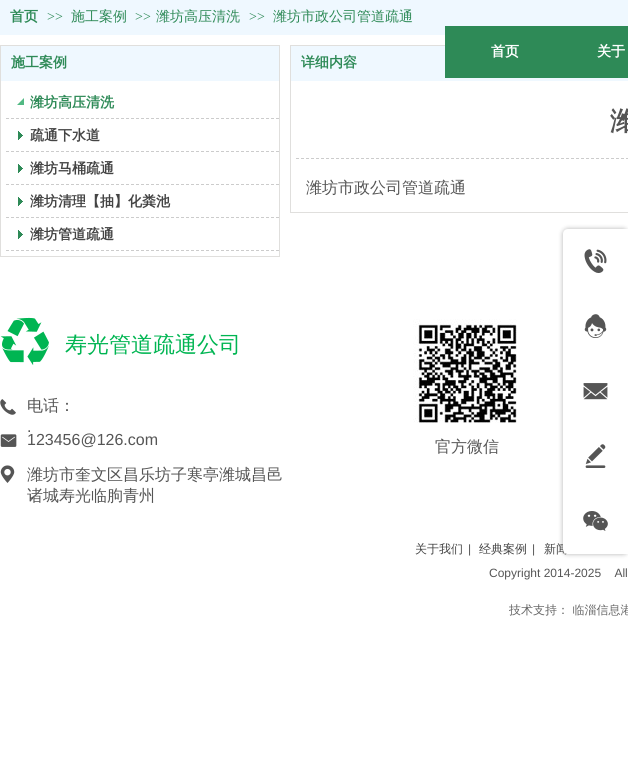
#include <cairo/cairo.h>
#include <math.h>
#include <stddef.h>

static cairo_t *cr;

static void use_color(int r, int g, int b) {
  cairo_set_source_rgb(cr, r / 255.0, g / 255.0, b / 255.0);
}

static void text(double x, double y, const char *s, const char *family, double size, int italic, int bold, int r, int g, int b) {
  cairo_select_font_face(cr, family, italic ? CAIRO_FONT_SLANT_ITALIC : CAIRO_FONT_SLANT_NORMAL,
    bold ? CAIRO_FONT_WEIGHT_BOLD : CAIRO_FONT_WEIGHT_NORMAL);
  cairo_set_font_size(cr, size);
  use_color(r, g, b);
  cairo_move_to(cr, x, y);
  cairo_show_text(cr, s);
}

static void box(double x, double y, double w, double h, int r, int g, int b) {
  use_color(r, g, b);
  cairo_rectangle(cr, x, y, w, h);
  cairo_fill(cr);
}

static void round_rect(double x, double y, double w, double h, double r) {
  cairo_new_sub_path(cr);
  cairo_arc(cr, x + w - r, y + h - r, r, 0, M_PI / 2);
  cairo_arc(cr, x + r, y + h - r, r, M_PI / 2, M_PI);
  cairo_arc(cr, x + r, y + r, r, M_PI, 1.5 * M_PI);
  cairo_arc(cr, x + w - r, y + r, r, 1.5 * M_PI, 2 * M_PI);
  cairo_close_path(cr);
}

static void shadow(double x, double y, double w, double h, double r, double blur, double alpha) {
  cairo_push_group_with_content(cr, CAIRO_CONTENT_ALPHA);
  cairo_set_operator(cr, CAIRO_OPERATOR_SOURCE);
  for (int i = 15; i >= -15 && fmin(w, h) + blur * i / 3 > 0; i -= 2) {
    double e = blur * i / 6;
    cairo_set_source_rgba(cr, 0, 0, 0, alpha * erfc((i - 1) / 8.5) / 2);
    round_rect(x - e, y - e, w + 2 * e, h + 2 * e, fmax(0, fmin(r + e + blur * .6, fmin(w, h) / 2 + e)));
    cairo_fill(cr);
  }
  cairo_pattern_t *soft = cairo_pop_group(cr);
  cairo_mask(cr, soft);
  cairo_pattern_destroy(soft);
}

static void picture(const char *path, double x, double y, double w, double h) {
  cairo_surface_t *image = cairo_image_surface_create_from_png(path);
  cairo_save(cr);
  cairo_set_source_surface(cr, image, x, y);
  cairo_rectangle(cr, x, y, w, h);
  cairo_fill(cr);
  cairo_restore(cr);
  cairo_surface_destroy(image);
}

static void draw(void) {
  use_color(255, 255, 255);
  cairo_paint(cr);
  box(0, 0, 628, 35, 239, 248, 255);
  cairo_rectangle(cr, 0.5, 45.5, 279, 211);
  use_color(224, 223, 221);
  cairo_set_line_width(cr, 1);
  cairo_stroke(cr);
  box(1, 46, 278, 35, 239, 248, 255);
  cairo_save(cr);
  cairo_rectangle(cr, 6, 86, 273, 33);
  cairo_clip(cr);
  cairo_new_path(cr);
  cairo_move_to(cr, 6, 118.5);
  cairo_line_to(cr, 284, 118.5);
  use_color(204, 204, 204);
  cairo_set_dash(cr, (double[]){3, 2}, 2, 0);
  cairo_stroke(cr);
  cairo_restore(cr);
  picture("img_01.png", 17, 98, 7, 7);
  cairo_save(cr);
  cairo_rectangle(cr, 6, 119, 273, 33);
  cairo_clip(cr);
  cairo_new_path(cr);
  cairo_move_to(cr, 6, 151.5);
  cairo_line_to(cr, 284, 151.5);
  use_color(204, 204, 204);
  cairo_set_dash(cr, (double[]){3, 2}, 2, 0);
  cairo_stroke(cr);
  cairo_restore(cr);
  picture("img_02.png", 18, 131, 5, 9);
  cairo_save(cr);
  cairo_rectangle(cr, 6, 152, 273, 33);
  cairo_clip(cr);
  cairo_new_path(cr);
  cairo_move_to(cr, 6, 184.5);
  cairo_line_to(cr, 284, 184.5);
  use_color(204, 204, 204);
  cairo_set_dash(cr, (double[]){3, 2}, 2, 0);
  cairo_stroke(cr);
  cairo_restore(cr);
  picture("img_02.png", 18, 164, 5, 9);
  cairo_save(cr);
  cairo_rectangle(cr, 6, 185, 273, 33);
  cairo_clip(cr);
  cairo_new_path(cr);
  cairo_move_to(cr, 6, 217.5);
  cairo_line_to(cr, 284, 217.5);
  use_color(204, 204, 204);
  cairo_set_dash(cr, (double[]){3, 2}, 2, 0);
  cairo_stroke(cr);
  cairo_restore(cr);
  picture("img_02.png", 18, 197, 5, 9);
  cairo_save(cr);
  cairo_rectangle(cr, 6, 218, 273, 33);
  cairo_clip(cr);
  cairo_new_path(cr);
  cairo_move_to(cr, 6, 250.5);
  cairo_line_to(cr, 284, 250.5);
  use_color(204, 204, 204);
  cairo_set_dash(cr, (double[]){3, 2}, 2, 0);
  cairo_stroke(cr);
  cairo_restore(cr);
  picture("img_02.png", 18, 230, 5, 9);
  cairo_rectangle(cr, 290.5, 45.5, 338, 167);
  use_color(224, 223, 221);
  cairo_stroke(cr);
  box(291, 46, 337, 35, 239, 248, 255);
  cairo_new_path(cr);
  cairo_move_to(cr, 296, 158.5);
  cairo_line_to(cr, 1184, 158.5);
  use_color(204, 204, 204);
  cairo_set_dash(cr, (double[]){3, 2}, 2, 0);
  cairo_stroke(cr);
  box(445, 26, 183, 52, 46, 138, 87);
  picture("img_03.png", 0, 317, 49, 48);
  picture("img_04.png", 413, 319, 104, 104);
  picture("img_05.png", 0, 399, 16, 16);
  picture("img_06.png", 0, 434, 17, 13);
  picture("img_07.png", 0, 465, 15, 18);
  use_color(0, 0, 0);
  shadow(563, 229, 65, 325, 5, 2.5, 0.3);
  text(10, 21, "首页", "WenQuanYi Zen Hei", 14, 0, 1, 46, 138, 87);
  text(47, 21, ">>", "Liberation Serif", 14, 0, 0, 46, 138, 87);
  text(71, 21, "施工案例", "WenQuanYi Zen Hei Medium", 14, 0, 0, 46, 138, 87);
  text(135, 21, ">>", "Liberation Serif", 14, 0, 0, 46, 138, 87);
  text(156, 21, "潍坊高压清洗", "WenQuanYi Zen Hei Medium", 14, 0, 0, 46, 138, 87);
  text(249, 21, ">>", "Liberation Serif", 14, 0, 0, 46, 138, 87);
  text(273, 21, "潍坊市政公司管道疏通", "WenQuanYi Zen Hei Medium", 14, 0, 0, 46, 138, 87);
  text(11, 67, "施工案例", "WenQuanYi Zen Hei", 14, 0, 1, 46, 138, 87);
  text(30, 107, "潍坊高压清洗", "WenQuanYi Zen Hei", 14, 0, 1, 46, 138, 87);
  text(30, 140, "疏通下水道", "WenQuanYi Zen Hei", 14, 0, 1, 68, 68, 68);
  text(30, 173, "潍坊马桶疏通", "WenQuanYi Zen Hei", 14, 0, 1, 68, 68, 68);
  text(30, 206, "潍坊清理【抽】化粪池", "WenQuanYi Zen Hei", 14, 0, 1, 68, 68, 68);
  text(30, 239, "潍坊管道疏通", "WenQuanYi Zen Hei", 14, 0, 1, 68, 68, 68);
  text(301, 67, "详细内容", "WenQuanYi Zen Hei", 14, 0, 1, 46, 138, 87);
  text(610, 130, "潍", "WenQuanYi Zen Hei", 26, 0, 1, 85, 85, 85);
  text(306, 193, "潍坊市政公司管道疏通", "WenQuanYi Zen Hei Medium", 16, 0, 0, 85, 85, 85);
  text(491, 56, "首页", "WenQuanYi Zen Hei", 14, 0, 1, 255, 255, 255);
  text(597, 56, "关于", "WenQuanYi Zen Hei", 14, 0, 1, 255, 255, 255);
  text(65, 352, "寿光管道疏通公司", "WenQuanYi Zen Hei Medium", 22, 0, 0, 0, 181, 82);
  text(27, 411, "电话：", "WenQuanYi Zen Hei Medium", 16, 0, 0, 85, 85, 85);
  text(27, 432, ".", "Liberation Sans", 16, 0, 0, 85, 85, 85);
  text(27, 445, "123456@126.com", "Liberation Sans", 16, 0, 0, 85, 85, 85);
  text(435, 452, "官方微信", "WenQuanYi Zen Hei Medium", 16, 0, 0, 85, 85, 85);
  text(27, 480, "潍坊市奎文区昌乐坊子寒亭潍城昌邑", "WenQuanYi Zen Hei Medium", 16, 0, 0, 85, 85, 85);
  text(27, 501, "诸城寿光临朐青州", "WenQuanYi Zen Hei Medium", 16, 0, 0, 85, 85, 85);
  text(415, 553, "关于我们", "WenQuanYi Zen Hei Medium", 12, 0, 0, 68, 68, 68);
  text(468, 553, "|", "Liberation Sans", 12, 0, 0, 85, 85, 85);
  text(479, 553, "经典案例", "WenQuanYi Zen Hei Medium", 12, 0, 0, 68, 68, 68);
  text(532, 553, "|", "Liberation Sans", 12, 0, 0, 85, 85, 85);
  text(544, 553, "新闻", "WenQuanYi Zen Hei Medium", 12, 0, 0, 68, 68, 68);
  use_color(255, 255, 255);
  cairo_new_path(cr);
  cairo_move_to(cr, 568, 229);
  cairo_line_to(cr, 628, 229);
  cairo_line_to(cr, 628, 554);
  cairo_line_to(cr, 568, 554);
  cairo_curve_to(cr, 565, 554, 563, 552, 563, 549);
  cairo_line_to(cr, 563, 234);
  cairo_curve_to(cr, 563, 231, 565, 229, 568, 229);
  cairo_close_path(cr);
  cairo_fill(cr);
  picture("img_12.png", 583, 511, 25, 20);
  picture("img_11.png", 585, 444, 21, 24);
  picture("img_10.png", 583, 383, 25, 17);
  picture("img_09.png", 584, 314, 23, 24);
  picture("img_08.png", 584, 249, 23, 24);
  text(489, 577, "Copyright 2014-2025    All", "Liberation Sans", 12, 0, 0, 85, 85, 85);
  text(509, 614, "技术支持： 临淄信息港", "WenQuanYi Zen Hei Medium", 12, 0, 0, 102, 102, 102);
}

int main(void) {
  cairo_surface_t *surface = cairo_image_surface_create(CAIRO_FORMAT_RGB24, 628, 781);
  cr = cairo_create(surface);
  cairo_font_options_t *options = cairo_font_options_create();
  cairo_font_options_set_hint_metrics(options, CAIRO_HINT_METRICS_OFF);
  cairo_font_options_set_hint_style(options, CAIRO_HINT_STYLE_NONE);
  cairo_set_font_options(cr, options);
  cairo_set_miter_limit(cr, 4);
  draw();
  cairo_surface_write_to_png(surface, "out.png");
  cairo_font_options_destroy(options);
  cairo_destroy(cr);
  cairo_surface_destroy(surface);
  return 0;
}
